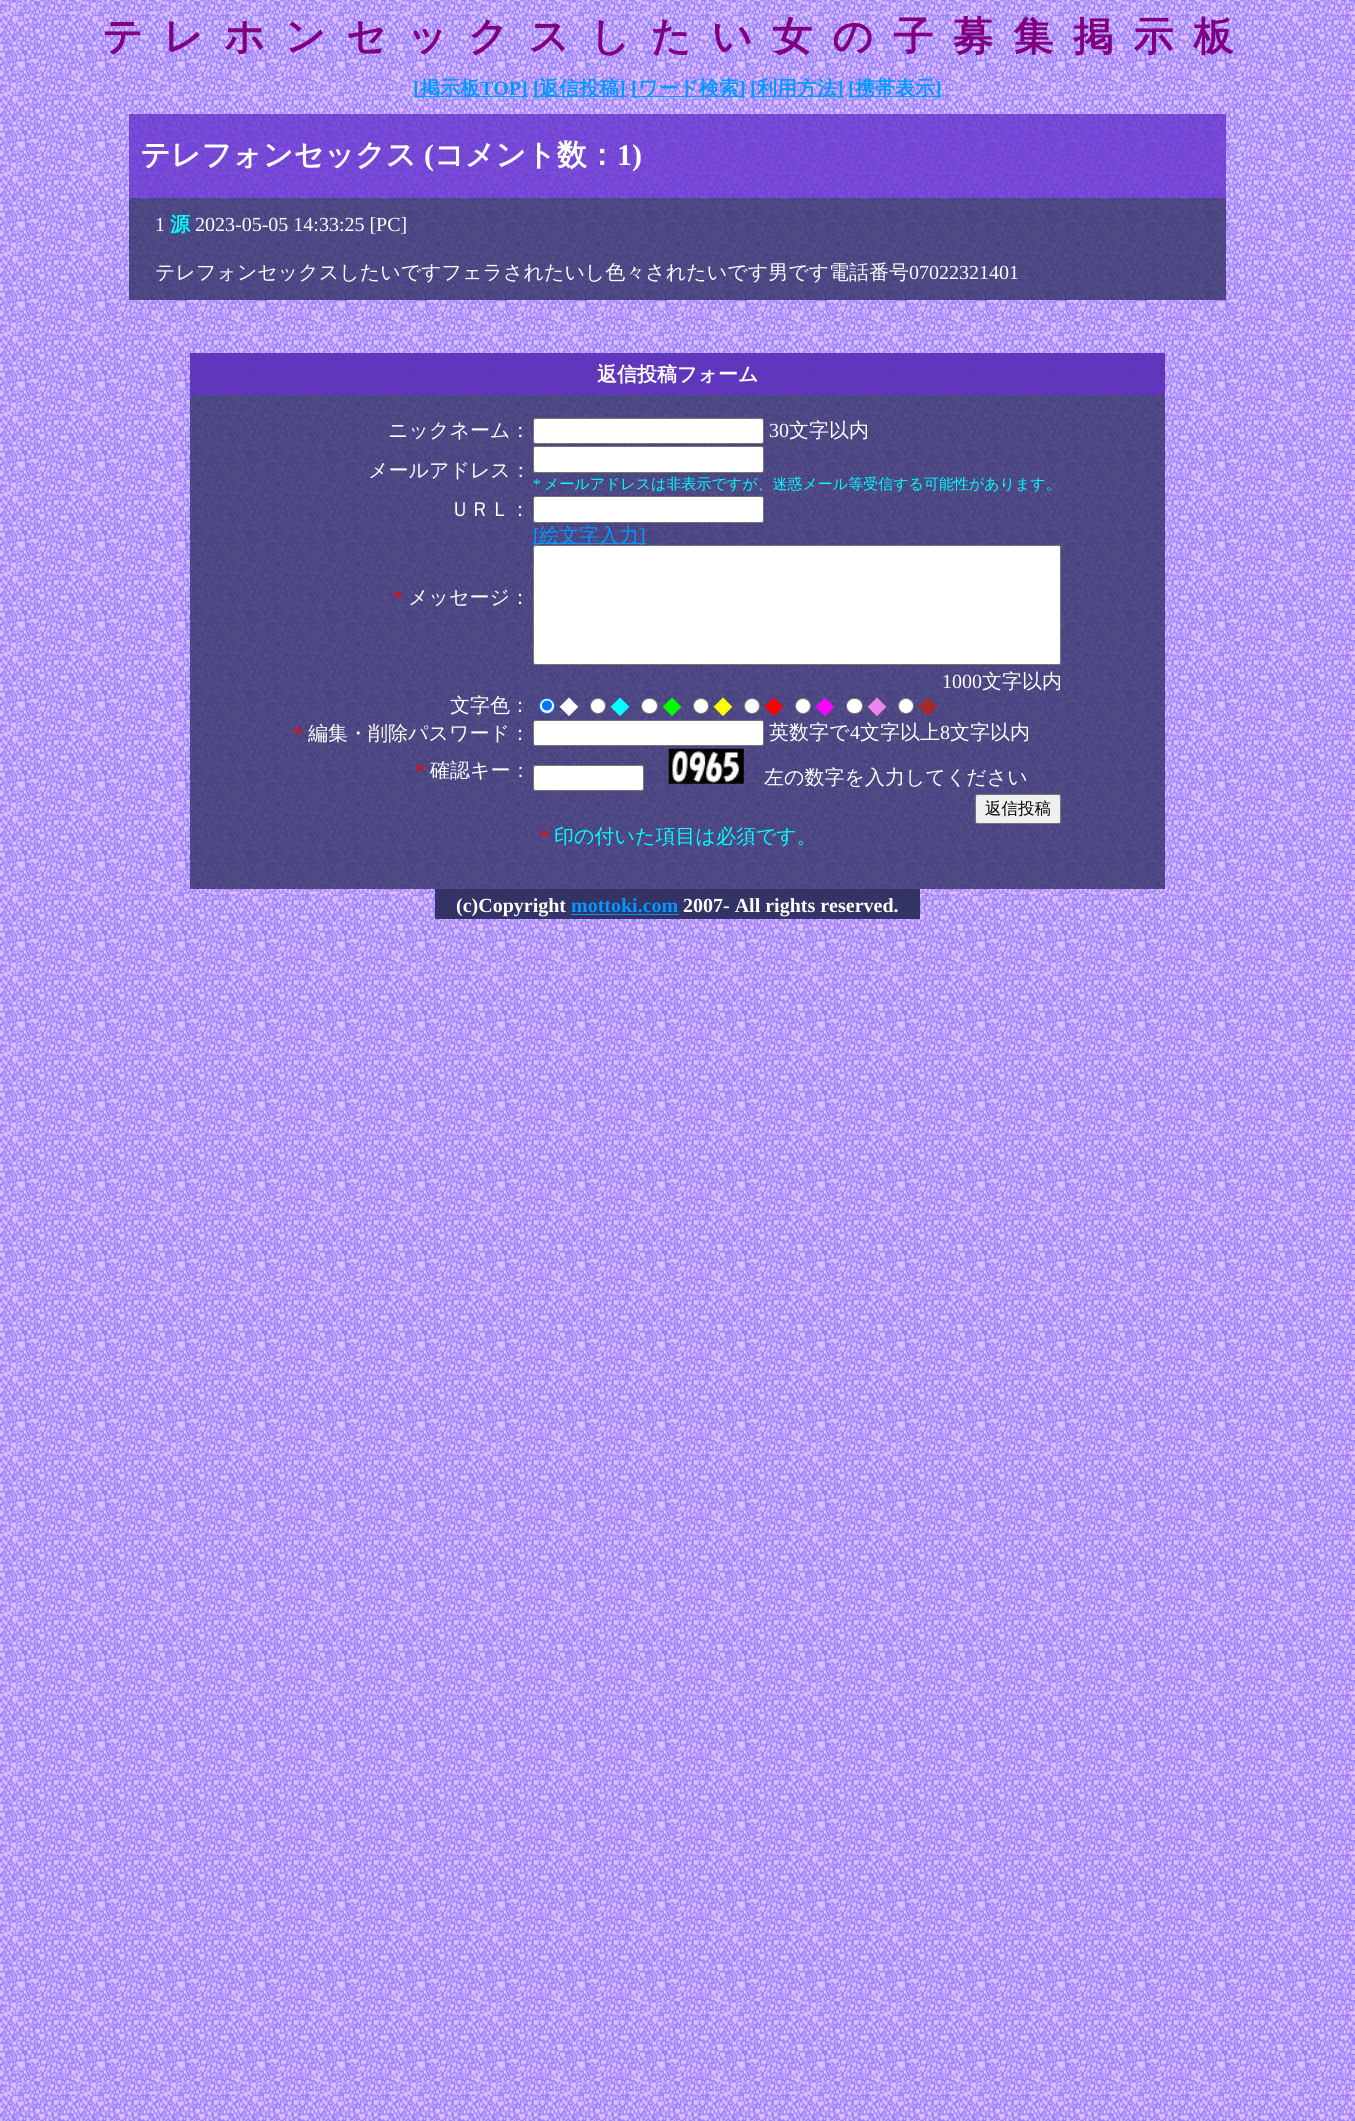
#include <cairo/cairo.h>
#include <math.h>
#include <stddef.h>

static cairo_t *cr;

static void use_color(int r, int g, int b) {
  cairo_set_source_rgb(cr, r / 255.0, g / 255.0, b / 255.0);
}

static void text(double x, double y, const char *s, const char *family, double size, int italic, int bold, int r, int g, int b) {
  cairo_select_font_face(cr, family, italic ? CAIRO_FONT_SLANT_ITALIC : CAIRO_FONT_SLANT_NORMAL,
    bold ? CAIRO_FONT_WEIGHT_BOLD : CAIRO_FONT_WEIGHT_NORMAL);
  cairo_set_font_size(cr, size);
  use_color(r, g, b);
  cairo_move_to(cr, x, y);
  cairo_show_text(cr, s);
}

static void spaced_text(double x, double y, const char *s, double letter, double word) {
  cairo_move_to(cr, x, y);
  while (*s) {
    char ch[5] = {0};
    int n = 0;
    do ch[n++] = *s++; while ((*s & 0xC0) == 0x80);
    cairo_show_text(cr, ch);
    cairo_rel_move_to(cr, letter + word * (*ch == ' '), 0);
  }
}

static void box(double x, double y, double w, double h, int r, int g, int b) {
  use_color(r, g, b);
  cairo_rectangle(cr, x, y, w, h);
  cairo_fill(cr);
}

static void round_rect(double x, double y, double w, double h, double r) {
  cairo_new_sub_path(cr);
  cairo_arc(cr, x + w - r, y + h - r, r, 0, M_PI / 2);
  cairo_arc(cr, x + r, y + h - r, r, M_PI / 2, M_PI);
  cairo_arc(cr, x + r, y + r, r, M_PI, 1.5 * M_PI);
  cairo_arc(cr, x + w - r, y + r, r, 1.5 * M_PI, 2 * M_PI);
  cairo_close_path(cr);
}

static void picture(const char *path, double x, double y, double w, double h) {
  cairo_surface_t *image = cairo_image_surface_create_from_png(path);
  cairo_save(cr);
  cairo_set_source_surface(cr, image, x, y);
  cairo_rectangle(cr, x, y, w, h);
  cairo_fill(cr);
  cairo_restore(cr);
  cairo_surface_destroy(image);
}

static void draw(void) {
  use_color(255, 255, 255);
  cairo_paint(cr);
  picture("img_01.png", 0, 0, 1355, 2121);
  box(414, 96, 114, 1, 0, 153, 255);
  box(533, 96, 93, 1, 0, 153, 255);
  box(631, 96, 114, 1, 0, 153, 255);
  box(750, 96, 94, 1, 0, 153, 255);
  box(849, 96, 92, 1, 0, 153, 255);
  cairo_set_source_rgba(cr, 0.4, 0.2, 0.8, 0.8);
  cairo_rectangle(cr, 129, 114, 1097, 84);
  cairo_fill(cr);
  cairo_set_source_rgba(cr, 0.2, 0.2, 0.4, 0.8);
  cairo_rectangle(cr, 129, 198, 1097, 102);
  cairo_fill(cr);
  cairo_rectangle(cr, 190, 353, 975, 536);
  cairo_fill(cr);
  cairo_set_source_rgba(cr, 0.4, 0.2, 0.8, 0.8);
  cairo_rectangle(cr, 190, 353, 975, 42);
  cairo_fill(cr);
  use_color(255, 255, 255);
  round_rect(533.5, 418.5, 230, 25, 2);
  cairo_fill_preserve(cr);
  use_color(118, 118, 118);
  cairo_set_line_width(cr, 1);
  cairo_stroke(cr);
  use_color(255, 255, 255);
  round_rect(533.5, 446.5, 230, 26, 2);
  cairo_fill_preserve(cr);
  use_color(118, 118, 118);
  cairo_stroke(cr);
  use_color(255, 255, 255);
  round_rect(533.5, 496.5, 230, 26, 2);
  cairo_fill_preserve(cr);
  use_color(118, 118, 118);
  cairo_stroke(cr);
  box(533, 543, 113, 1, 0, 153, 255);
  use_color(255, 255, 255);
  cairo_arc(cr, 547, 706, 7.5, 0, 2 * M_PI);
  cairo_fill_preserve(cr);
  use_color(0, 117, 255);
  cairo_stroke(cr);
  cairo_arc(cr, 547, 705.5, 5, 0, 2 * M_PI);
  cairo_fill(cr);
  use_color(255, 255, 255);
  cairo_arc(cr, 598, 706, 7.5, 0, 2 * M_PI);
  cairo_fill_preserve(cr);
  use_color(118, 118, 118);
  cairo_stroke(cr);
  use_color(255, 255, 255);
  round_rect(641.5, 698.5, 16, 15, 7.5);
  cairo_fill_preserve(cr);
  use_color(118, 118, 118);
  cairo_stroke(cr);
  use_color(255, 255, 255);
  cairo_arc(cr, 701, 706, 7.5, 0, 2 * M_PI);
  cairo_fill_preserve(cr);
  use_color(118, 118, 118);
  cairo_stroke(cr);
  use_color(255, 255, 255);
  cairo_arc(cr, 752, 706, 7.5, 0, 2 * M_PI);
  cairo_fill_preserve(cr);
  use_color(118, 118, 118);
  cairo_stroke(cr);
  use_color(255, 255, 255);
  cairo_arc(cr, 803, 706, 7.5, 0, 2 * M_PI);
  cairo_fill_preserve(cr);
  use_color(118, 118, 118);
  cairo_stroke(cr);
  use_color(255, 255, 255);
  round_rect(846.5, 698.5, 16, 15, 7.5);
  cairo_fill_preserve(cr);
  use_color(118, 118, 118);
  cairo_stroke(cr);
  use_color(255, 255, 255);
  cairo_arc(cr, 906, 706, 7.5, 0, 2 * M_PI);
  cairo_fill_preserve(cr);
  use_color(118, 118, 118);
  cairo_stroke(cr);
  use_color(255, 255, 255);
  round_rect(533.5, 720.5, 230, 25, 2);
  cairo_fill_preserve(cr);
  use_color(118, 118, 118);
  cairo_stroke(cr);
  use_color(255, 255, 255);
  round_rect(533.5, 765.5, 110, 25, 2);
  cairo_fill_preserve(cr);
  use_color(118, 118, 118);
  cairo_stroke(cr);
  picture("img_02.png", 668, 748, 76, 36);
  use_color(239, 239, 239);
  round_rect(975.5, 794.5, 85, 29, 2);
  cairo_fill_preserve(cr);
  use_color(118, 118, 118);
  cairo_stroke(cr);
  box(435, 889, 485, 30, 51, 51, 102);
  box(571, 914, 108, 1, 0, 153, 255);
  cairo_select_font_face(cr, "WenQuanYi Zen Hei", CAIRO_FONT_SLANT_NORMAL, CAIRO_FONT_WEIGHT_BOLD);
  cairo_set_font_size(cr, 40);
  use_color(128, 0, 128);
  spaced_text(102, 50, "テレホンセックスしたい女の子募集掲示板", 20, 0);
  text(413, 95, "[", "Liberation Serif", 20, 0, 1, 0, 153, 255);
  text(420, 95, "掲示板", "WenQuanYi Zen Hei", 20, 0, 1, 0, 153, 255);
  text(480, 95, "TOP]", "Liberation Serif", 20, 0, 1, 0, 153, 255);
  text(533, 95, "[", "Liberation Serif", 20, 0, 1, 0, 153, 255);
  text(539, 95, "返信投稿", "WenQuanYi Zen Hei", 20, 0, 1, 0, 153, 255);
  text(619, 95, "]", "Liberation Serif", 20, 0, 1, 0, 153, 255);
  text(631, 95, "[", "Liberation Serif", 20, 0, 1, 0, 153, 255);
  text(638, 95, "ワード検索", "WenQuanYi Zen Hei", 20, 0, 1, 0, 153, 255);
  text(739, 95, "]", "Liberation Serif", 20, 0, 1, 0, 153, 255);
  text(750, 95, "[", "Liberation Serif", 20, 0, 1, 0, 153, 255);
  text(757, 95, "利用方法", "WenQuanYi Zen Hei", 20, 0, 1, 0, 153, 255);
  text(837, 95, "]", "Liberation Serif", 20, 0, 1, 0, 153, 255);
  text(848, 95, "[", "Liberation Serif", 20, 0, 1, 0, 153, 255);
  text(855, 95, "携帯表示", "WenQuanYi Zen Hei", 20, 0, 1, 0, 153, 255);
  text(935, 95, "]", "Liberation Serif", 20, 0, 1, 0, 153, 255);
  text(140, 165, "テレフォンセックス", "WenQuanYi Zen Hei", 30, 0, 1, 255, 255, 255);
  text(424, 165, "(", "Liberation Serif", 30, 0, 1, 255, 255, 255);
  text(434, 165, "コメント数：", "WenQuanYi Zen Hei", 30, 0, 1, 255, 255, 255);
  text(617, 165, "1)", "Liberation Serif", 30, 0, 1, 255, 255, 255);
  text(155, 231, "1", "Liberation Serif", 20, 0, 0, 255, 255, 255);
  text(170, 231, "源", "WenQuanYi Zen Hei", 20, 0, 1, 0, 255, 255);
  text(195, 231, "2023-05-05 14:33:25 [PC]", "Liberation Serif", 20, 0, 0, 255, 255, 255);
  text(155, 279, "テレフォンセックスしたいですフェラされたいし色々されたいです男です電話番号", "WenQuanYi Zen Hei Medium", 20, 0, 0, 255, 255, 255);
  text(909, 279, "07022321401", "Liberation Serif", 20, 0, 0, 255, 255, 255);
  text(597, 381, "返信投稿フォーム", "WenQuanYi Zen Hei", 20, 0, 1, 255, 255, 255);
  text(388, 437, "ニックネーム：", "WenQuanYi Zen Hei Medium", 20, 0, 0, 255, 255, 255);
  text(769, 437, "30", "Liberation Serif", 20, 0, 0, 255, 255, 255);
  text(789, 437, "文字以内", "WenQuanYi Zen Hei Medium", 20, 0, 0, 255, 255, 255);
  text(368, 477, "メールアドレス：", "WenQuanYi Zen Hei Medium", 20, 0, 0, 255, 255, 255);
  text(533, 489, "*", "Liberation Serif", 15, 0, 0, 0, 255, 255);
  text(544, 489, "メールアドレスは非表示ですが、迷惑メール等受信する可能性があります。", "WenQuanYi Zen Hei Medium", 15, 0, 0, 0, 255, 255);
  text(450, 516, "ＵＲＬ：", "WenQuanYi Zen Hei Medium", 20, 0, 0, 255, 255, 255);
  text(533, 542, "[", "Liberation Serif", 20, 0, 0, 0, 153, 255);
  text(539, 542, "絵文字入力", "WenQuanYi Zen Hei Medium", 20, 0, 0, 0, 153, 255);
  text(639, 542, "]", "Liberation Serif", 20, 0, 0, 0, 153, 255);
  use_color(255, 255, 255);
  round_rect(533.5, 545.5, 527, 119, 2);
  cairo_fill_preserve(cr);
  use_color(118, 118, 118);
  cairo_stroke(cr);
  text(393, 604, "*", "Liberation Serif", 20, 0, 0, 255, 0, 0);
  text(408, 604, "メッセージ：", "WenQuanYi Zen Hei Medium", 20, 0, 0, 255, 255, 255);
  text(942, 688, "1000", "Liberation Serif", 20, 0, 0, 255, 255, 255);
  text(982, 688, "文字以内", "WenQuanYi Zen Hei Medium", 20, 0, 0, 255, 255, 255);
  text(450, 712, "文字色：", "WenQuanYi Zen Hei Medium", 20, 0, 0, 255, 255, 255);
  text(559, 714, "◆", "WenQuanYi Zen Hei Medium", 20, 0, 0, 255, 255, 255);
  text(610, 714, "◆", "WenQuanYi Zen Hei Medium", 20, 0, 0, 0, 255, 255);
  text(662, 714, "◆", "WenQuanYi Zen Hei Medium", 20, 0, 0, 0, 255, 0);
  text(713, 714, "◆", "WenQuanYi Zen Hei Medium", 20, 0, 0, 255, 255, 0);
  text(764, 714, "◆", "WenQuanYi Zen Hei Medium", 20, 0, 0, 255, 0, 0);
  text(815, 714, "◆", "WenQuanYi Zen Hei Medium", 20, 0, 0, 255, 0, 255);
  text(867, 714, "◆", "WenQuanYi Zen Hei Medium", 20, 0, 0, 238, 130, 238);
  text(918, 714, "◆", "WenQuanYi Zen Hei Medium", 20, 0, 0, 165, 42, 42);
  text(293, 740, "*", "Liberation Serif", 20, 0, 0, 255, 0, 0);
  text(308, 740, "編集・削除パスワード：", "WenQuanYi Zen Hei Medium", 20, 0, 0, 255, 255, 255);
  text(769, 739, "英数字で", "WenQuanYi Zen Hei Medium", 20, 0, 0, 255, 255, 255);
  text(850, 739, "4", "Liberation Serif", 20, 0, 0, 255, 255, 255);
  text(860, 739, "文字以上", "WenQuanYi Zen Hei Medium", 20, 0, 0, 255, 255, 255);
  text(940, 739, "8", "Liberation Serif", 20, 0, 0, 255, 255, 255);
  text(950, 739, "文字以内", "WenQuanYi Zen Hei Medium", 20, 0, 0, 255, 255, 255);
  text(415, 777, "*", "Liberation Serif", 20, 0, 0, 255, 0, 0);
  text(430, 777, "確認キー：", "WenQuanYi Zen Hei Medium", 20, 0, 0, 255, 255, 255);
  text(764, 784, "左の数字を入力してください", "WenQuanYi Zen Hei Medium", 20, 0, 0, 255, 255, 255);
  text(985, 814, "返信投稿", "WenQuanYi Zen Hei Medium", 16.5, 0, 0, 0, 0, 0);
  text(539, 843, "*", "Liberation Serif", 20, 0, 0, 255, 0, 0);
  text(554, 843, "印の付いた項目は必須です。", "WenQuanYi Zen Hei Medium", 20, 0, 0, 0, 255, 255);
  text(456, 912, "(c)Copyright", "Liberation Serif", 20, 0, 1, 255, 255, 255);
  text(571, 912, "mottoki.com", "Liberation Serif", 20, 0, 1, 0, 153, 255);
  text(683, 912, "2007- All rights reserved.", "Liberation Serif", 20, 0, 1, 255, 255, 255);
}

int main(void) {
  cairo_surface_t *surface = cairo_image_surface_create(CAIRO_FORMAT_RGB24, 1355, 2121);
  cr = cairo_create(surface);
  cairo_font_options_t *options = cairo_font_options_create();
  cairo_font_options_set_hint_metrics(options, CAIRO_HINT_METRICS_OFF);
  cairo_font_options_set_hint_style(options, CAIRO_HINT_STYLE_NONE);
  cairo_set_font_options(cr, options);
  cairo_set_miter_limit(cr, 4);
  draw();
  cairo_surface_write_to_png(surface, "out.png");
  cairo_font_options_destroy(options);
  cairo_destroy(cr);
  cairo_surface_destroy(surface);
  return 0;
}
